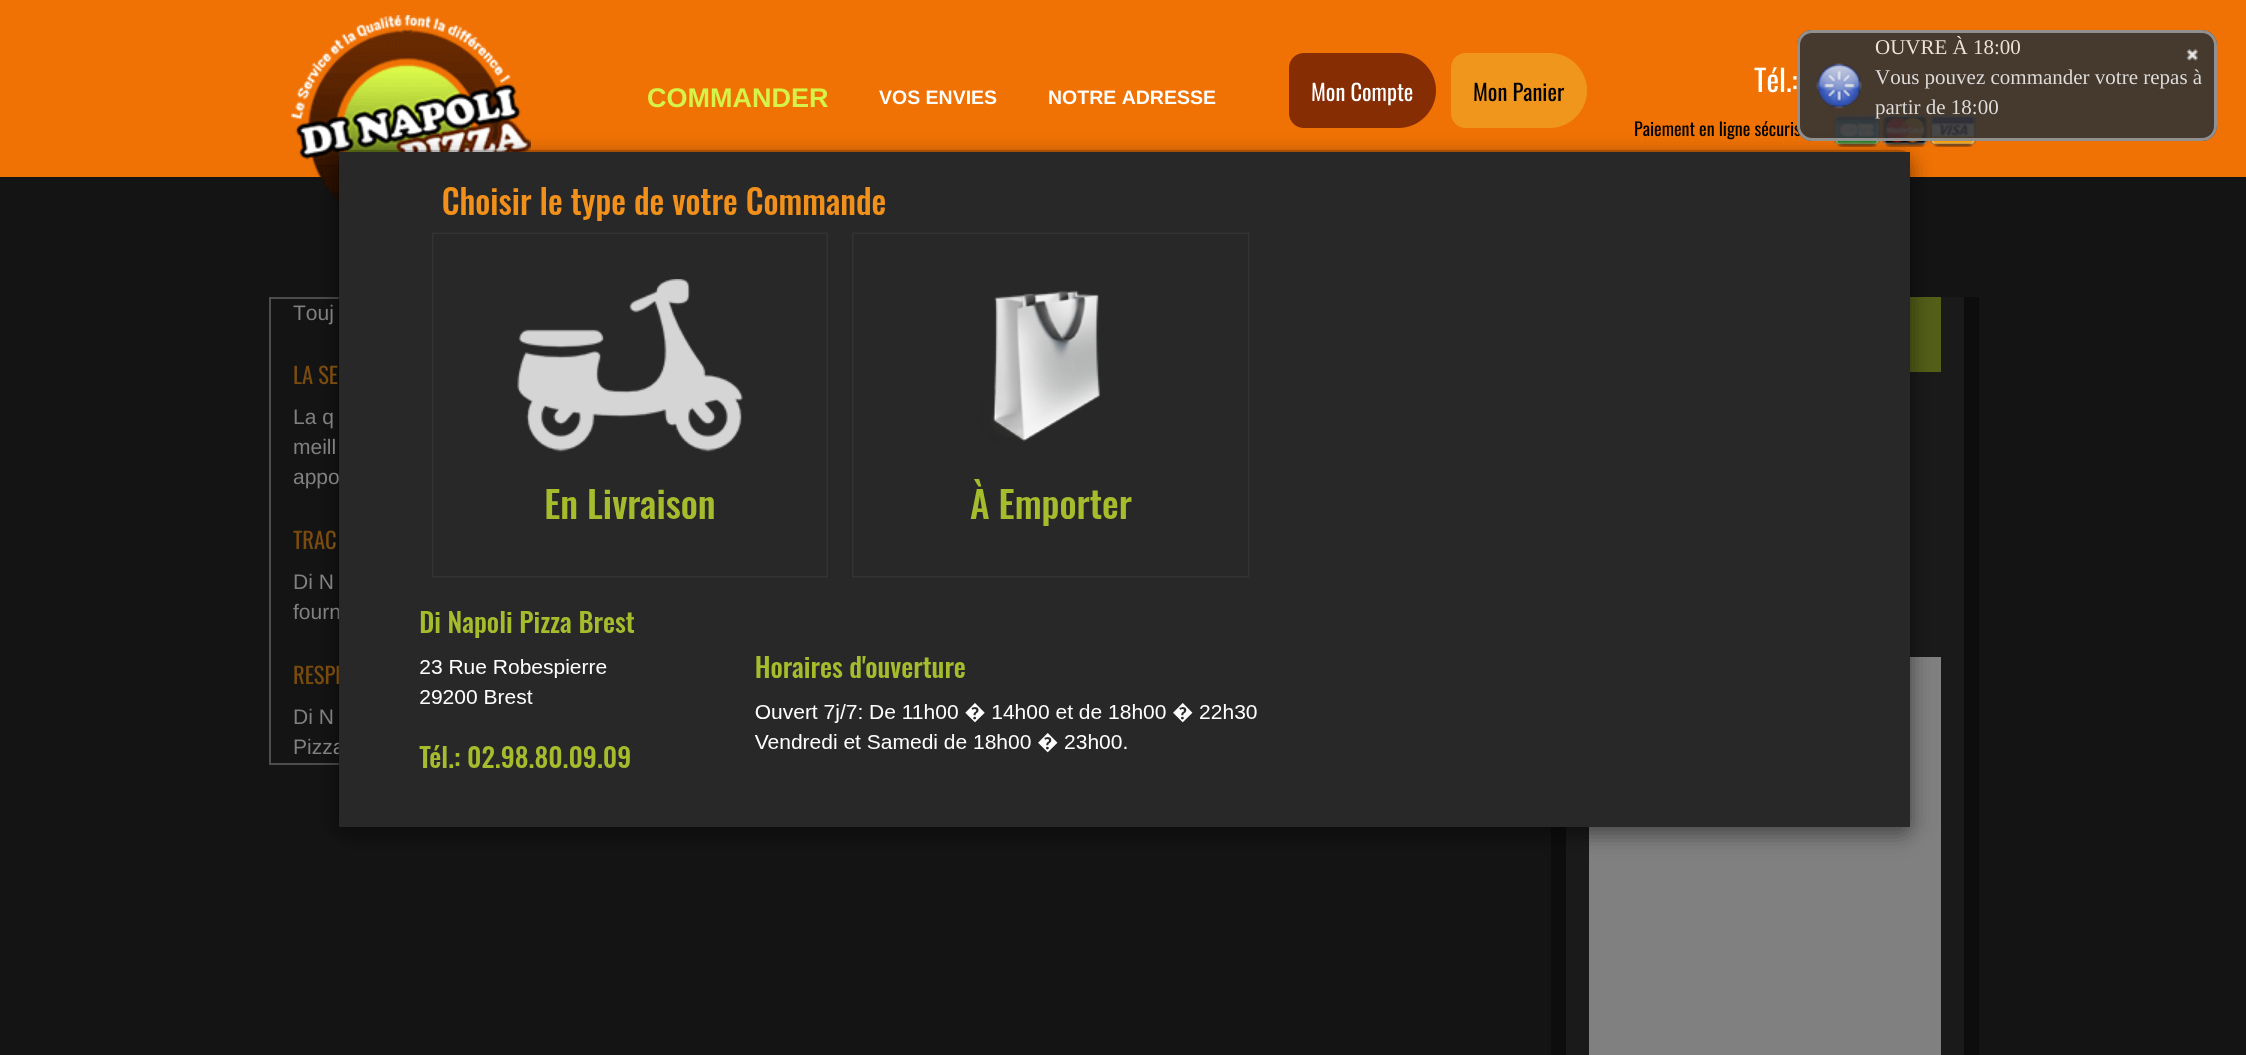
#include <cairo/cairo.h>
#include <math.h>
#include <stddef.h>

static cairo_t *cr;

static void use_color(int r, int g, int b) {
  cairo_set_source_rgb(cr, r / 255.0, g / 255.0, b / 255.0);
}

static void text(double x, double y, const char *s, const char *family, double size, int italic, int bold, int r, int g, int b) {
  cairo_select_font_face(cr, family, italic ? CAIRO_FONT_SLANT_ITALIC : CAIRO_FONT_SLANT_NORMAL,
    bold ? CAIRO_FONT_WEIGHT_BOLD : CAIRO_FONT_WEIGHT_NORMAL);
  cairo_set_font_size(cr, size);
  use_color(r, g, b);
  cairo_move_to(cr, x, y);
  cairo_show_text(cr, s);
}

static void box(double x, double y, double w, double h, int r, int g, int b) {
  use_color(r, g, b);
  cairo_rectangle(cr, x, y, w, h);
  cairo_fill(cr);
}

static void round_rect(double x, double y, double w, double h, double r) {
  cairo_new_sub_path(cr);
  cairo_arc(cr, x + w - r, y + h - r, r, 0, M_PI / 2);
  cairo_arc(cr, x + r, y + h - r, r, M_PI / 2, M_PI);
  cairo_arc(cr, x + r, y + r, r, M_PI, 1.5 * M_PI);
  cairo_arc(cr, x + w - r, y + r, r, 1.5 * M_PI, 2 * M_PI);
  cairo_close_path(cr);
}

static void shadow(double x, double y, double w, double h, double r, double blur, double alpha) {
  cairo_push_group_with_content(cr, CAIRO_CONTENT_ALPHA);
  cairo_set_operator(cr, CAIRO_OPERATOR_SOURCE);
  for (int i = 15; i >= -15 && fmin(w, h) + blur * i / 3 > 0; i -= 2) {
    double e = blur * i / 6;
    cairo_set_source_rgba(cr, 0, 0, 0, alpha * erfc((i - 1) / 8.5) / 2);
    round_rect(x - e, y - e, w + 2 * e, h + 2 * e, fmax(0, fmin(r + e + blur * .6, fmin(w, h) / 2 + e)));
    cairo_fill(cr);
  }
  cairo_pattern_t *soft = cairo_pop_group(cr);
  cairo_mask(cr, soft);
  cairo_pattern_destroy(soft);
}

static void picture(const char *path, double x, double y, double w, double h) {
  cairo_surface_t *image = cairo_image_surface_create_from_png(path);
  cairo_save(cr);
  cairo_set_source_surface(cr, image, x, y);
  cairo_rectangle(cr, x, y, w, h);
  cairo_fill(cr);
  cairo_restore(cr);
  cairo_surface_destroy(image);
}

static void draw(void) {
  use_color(20, 20, 20);
  cairo_paint(cr);
  box(0, 0, 2246, 177, 240, 114, 4);
  picture("img_01.png", 291, 15, 240, 188);
  use_color(134, 45, 3);
  cairo_new_path(cr);
  cairo_move_to(cr, 1304, 53);
  cairo_line_to(cr, 1398.5, 53);
  cairo_curve_to(cr, 1419, 53, 1436, 70, 1436, 90.5);
  cairo_curve_to(cr, 1436, 111, 1419, 128, 1398.5, 128);
  cairo_line_to(cr, 1304, 128);
  cairo_curve_to(cr, 1295.5, 128, 1289, 121.5, 1289, 113);
  cairo_line_to(cr, 1289, 68);
  cairo_curve_to(cr, 1289, 59.5, 1295.5, 53, 1304, 53);
  cairo_close_path(cr);
  cairo_fill(cr);
  use_color(241, 150, 28);
  cairo_new_path(cr);
  cairo_move_to(cr, 1466, 53);
  cairo_line_to(cr, 1549.5, 53);
  cairo_curve_to(cr, 1570, 53, 1587, 70, 1587, 90.5);
  cairo_curve_to(cr, 1587, 111, 1570, 128, 1549.5, 128);
  cairo_line_to(cr, 1466, 128);
  cairo_curve_to(cr, 1457.5, 128, 1451, 121.5, 1451, 113);
  cairo_line_to(cr, 1451, 68);
  cairo_curve_to(cr, 1451, 59.5, 1457.5, 53, 1466, 53);
  cairo_close_path(cr);
  cairo_fill(cr);
  picture("img_02.png", 1834, 115, 46, 32);
  picture("img_03.png", 1882, 115, 46, 32);
  picture("img_04.png", 1930, 115, 46, 32);
  cairo_rectangle(cr, 270, 298, 1280, 466);
  use_color(77, 77, 77);
  cairo_stroke(cr);
  box(1566, 297, 398, 758, 26, 26, 26);
  box(1964, 297, 15, 758, 13, 13, 13);
  box(1551, 827, 15, 228, 13, 13, 13);
  box(1910, 297, 31, 75, 83, 94, 23);
  box(1589, 657, 352, 398, 128, 128, 128);
  use_color(0, 0, 0);
  shadow(338, 158, 1572, 675, 9, 11, 0.5);
  text(647, 107, "COMMANDER", "Liberation Sans", 27, 0, 1, 213, 243, 72);
  text(879, 104, "VOS ENVIES", "Liberation Sans", 19.5, 0, 1, 255, 255, 255);
  text(1048, 104, "NOTRE ADRESSE", "Liberation Sans", 19.5, 0, 1, 255, 255, 255);
  text(1311, 101, "Mon Compte", "Oswald", 22.5, 0, 0, 255, 255, 255);
  text(1473, 101, "Mon Panier", "Oswald", 22.5, 0, 0, 0, 0, 0);
  text(1754, 92, "Tél.:", "Oswald", 30, 0, 0, 255, 255, 255);
  text(1634, 136, "Paiement en ligne sécuris", "Oswald", 18, 0, 0, 0, 0, 0);
  text(293, 320, "Touj", "Liberation Sans", 21, 0, 0, 128, 128, 128);
  text(293, 384, "LA SE", "Oswald", 22.5, 0, 0, 121, 75, 14);
  text(293, 424, "La q", "Liberation Sans", 21, 0, 0, 128, 128, 128);
  text(293, 454, "meill", "Liberation Sans", 21, 0, 0, 128, 128, 128);
  text(293, 484, "appo", "Liberation Sans", 21, 0, 0, 128, 128, 128);
  text(293, 549, "TRAC", "Oswald", 22.5, 0, 0, 121, 75, 14);
  text(293, 589, "Di N", "Liberation Sans", 21, 0, 0, 128, 128, 128);
  text(293, 619, "fourn", "Liberation Sans", 21, 0, 0, 128, 128, 128);
  text(293, 684, "RESPE", "Oswald", 22.5, 0, 0, 121, 75, 14);
  text(293, 724, "Di N", "Liberation Sans", 21, 0, 0, 128, 128, 128);
  text(293, 754, "Pizza", "Liberation Sans", 21, 0, 0, 128, 128, 128);
  cairo_set_source_rgba(cr, 0.2, 0.2, 0.2, 0.9);
  round_rect(1797, 30, 420, 111, 15);
  cairo_fill(cr);
  round_rect(1798.5, 31.5, 417, 108, 13.5);
  cairo_set_source_rgba(cr, 0.6, 0.6, 0.6, 0.9);
  cairo_set_line_width(cr, 3);
  cairo_stroke(cr);
  text(1875, 54, "OUVRE À 18:00", "Liberation Serif", 21, 0, 0, 238, 226, 215);
  text(1875, 84, "Vous pouvez commander votre repas à", "Liberation Serif", 21, 0, 0, 221, 220, 219);
  text(1875, 114, "partir de 18:00", "Liberation Serif", 21, 0, 0, 221, 220, 219);
  picture("img_05.png", 2186, 49, 12, 12);
  picture("img_06.png", 1816, 63, 46, 46);
  round_rect(339, 151, 1570, 673, 8);
  cairo_set_source_rgba(cr, 0, 0, 0, 0.2);
  cairo_set_line_width(cr, 2);
  cairo_stroke(cr);
  picture("img_07.png", 339, 152, 1571, 675);
}

int main(void) {
  cairo_surface_t *surface = cairo_image_surface_create(CAIRO_FORMAT_RGB24, 2246, 1055);
  cr = cairo_create(surface);
  cairo_font_options_t *options = cairo_font_options_create();
  cairo_font_options_set_hint_metrics(options, CAIRO_HINT_METRICS_OFF);
  cairo_font_options_set_hint_style(options, CAIRO_HINT_STYLE_NONE);
  cairo_set_font_options(cr, options);
  cairo_set_miter_limit(cr, 4);
  draw();
  cairo_surface_write_to_png(surface, "out.png");
  cairo_font_options_destroy(options);
  cairo_destroy(cr);
  cairo_surface_destroy(surface);
  return 0;
}
